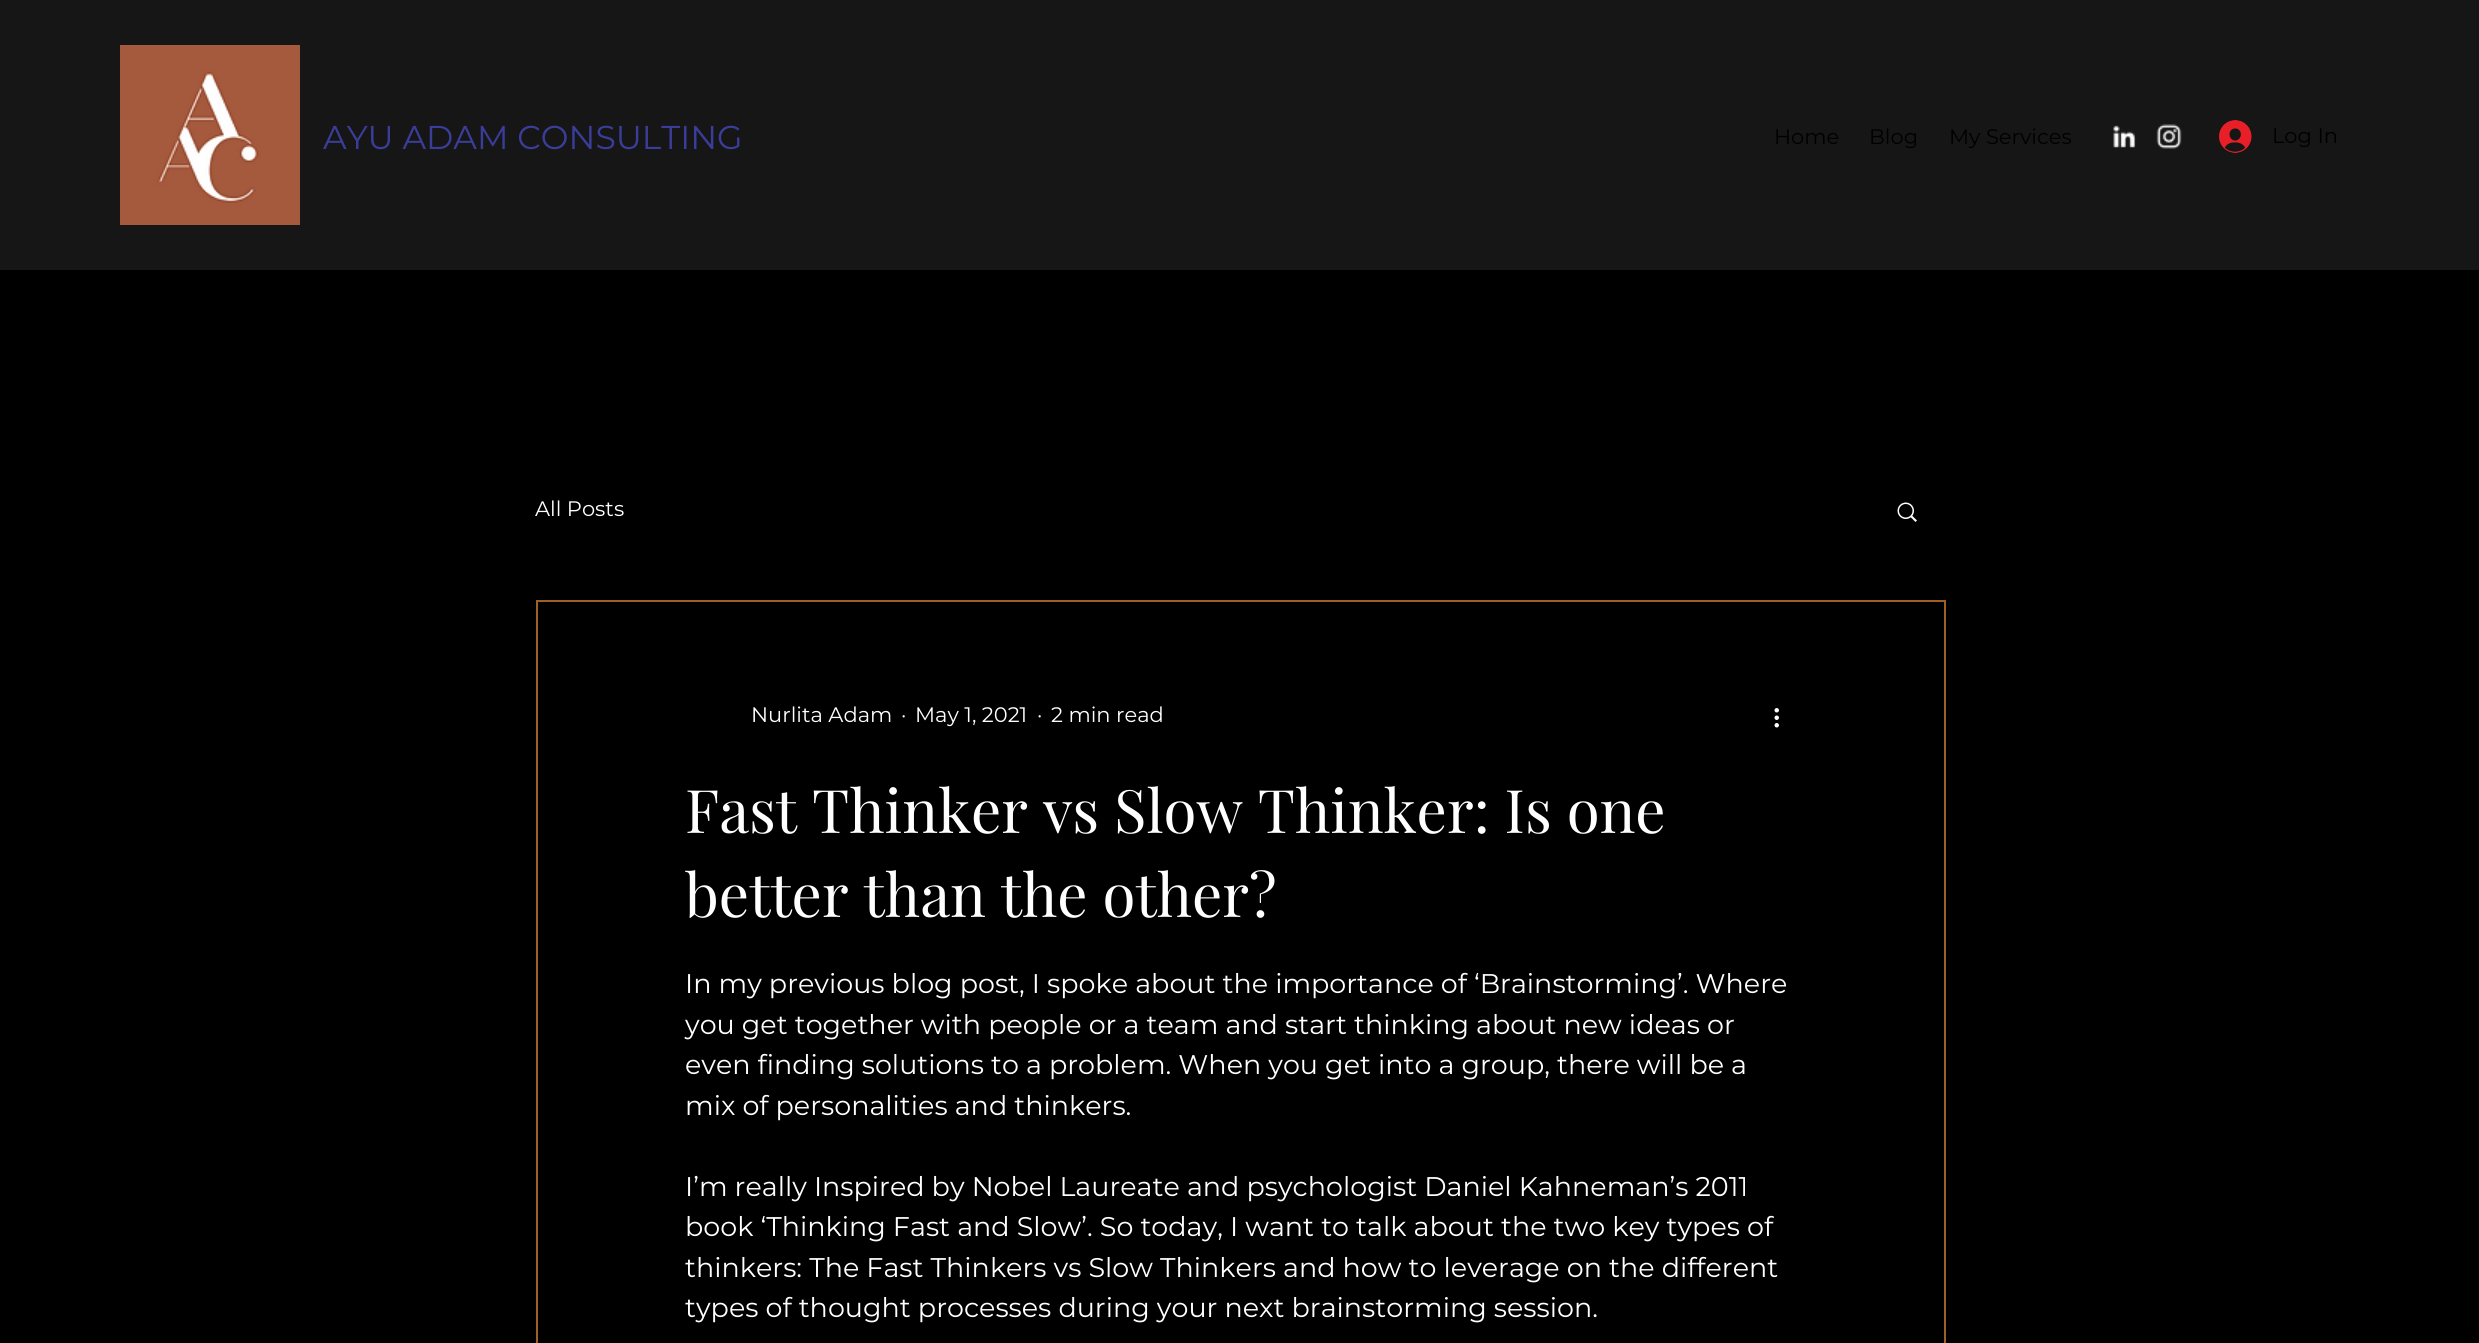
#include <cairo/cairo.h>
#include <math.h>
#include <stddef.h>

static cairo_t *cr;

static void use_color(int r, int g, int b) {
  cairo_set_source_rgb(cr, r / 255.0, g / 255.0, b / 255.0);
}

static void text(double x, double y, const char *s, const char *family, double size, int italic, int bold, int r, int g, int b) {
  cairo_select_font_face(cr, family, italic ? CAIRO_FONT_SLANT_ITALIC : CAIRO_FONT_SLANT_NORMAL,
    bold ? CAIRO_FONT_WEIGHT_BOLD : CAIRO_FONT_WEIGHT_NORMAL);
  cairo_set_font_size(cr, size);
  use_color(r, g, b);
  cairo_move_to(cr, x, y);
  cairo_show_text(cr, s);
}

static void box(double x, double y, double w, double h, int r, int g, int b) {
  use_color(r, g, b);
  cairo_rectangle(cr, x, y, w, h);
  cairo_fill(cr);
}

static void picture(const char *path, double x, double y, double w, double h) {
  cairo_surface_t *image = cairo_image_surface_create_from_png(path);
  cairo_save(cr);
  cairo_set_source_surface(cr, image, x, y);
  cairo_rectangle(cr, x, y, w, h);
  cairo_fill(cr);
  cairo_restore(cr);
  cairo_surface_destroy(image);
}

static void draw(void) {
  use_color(0, 0, 0);
  cairo_paint(cr);
  box(0, 0, 2479, 270, 22, 22, 22);
  picture("img_01.png", 120, 45, 180, 180);
  picture("img_02.png", 2113, 125, 23, 23);
  picture("img_03.png", 2156, 124, 26, 25);
  picture("img_04.png", 2219, 120, 33, 33);
  picture("img_05.png", 1897, 502, 20, 20);
  cairo_rectangle(cr, 537, 601, 1408, 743);
  use_color(158, 96, 41);
  cairo_stroke(cr);
  picture("img_06.png", 1774, 708, 5, 20);
  text(323, 149, "AYU ADAM CONSULTING", "Montserrat", 33, 0, 0, 59, 61, 155);
  text(1774, 144, "Home", "Montserrat", 21, 0, 0, 0, 0, 0);
  text(1869, 144, "Blog", "Montserrat", 21, 0, 0, 0, 0, 0);
  text(1949, 144, "My Services", "Montserrat", 21, 0, 0, 0, 0, 0);
  text(2272, 143, "Log In", "Montserrat", 21, 0, 0, 0, 0, 0);
  text(535, 516, "All Posts", "Montserrat", 21, 0, 0, 255, 255, 255);
  text(751, 722, "Nurlita Adam", "Montserrat", 21, 0, 0, 255, 255, 255);
  text(901, 722, "·", "Montserrat", 21, 0, 0, 255, 255, 255);
  text(915, 722, "May 1, 2021", "Montserrat", 21, 0, 0, 255, 255, 255);
  text(1037, 722, "·", "Montserrat", 21, 0, 0, 255, 255, 255);
  text(1051, 722, "2 min read", "Montserrat", 21, 0, 0, 255, 255, 255);
  text(685, 833, "Fast Thinker vs Slow Thinker: Is one", "Playfair Display", 60, 0, 0, 255, 255, 255);
  text(685, 917, "better than the other?", "Playfair Display", 60, 0, 0, 255, 255, 255);
  text(685, 993, "In my previous blog post, I spoke about the importance of ‘Brainstorming’. Where", "Montserrat", 27, 0, 0, 255, 255, 255);
  text(685, 1034, "you get together with people or a team and start thinking about new ideas or", "Montserrat", 27, 0, 0, 255, 255, 255);
  text(685, 1074, "even finding solutions to a problem. When you get into a group, there will be a", "Montserrat", 27, 0, 0, 255, 255, 255);
  text(685, 1115, "mix of personalities and thinkers.", "Montserrat", 27, 0, 0, 255, 255, 255);
  text(685, 1196, "I’m really Inspired by Nobel Laureate and psychologist Daniel Kahneman’s 2011", "Montserrat", 27, 0, 0, 255, 255, 255);
  text(685, 1236, "book ‘Thinking Fast and Slow’. So today, I want to talk about the two key types of", "Montserrat", 27, 0, 0, 255, 255, 255);
  text(685, 1277, "thinkers: The Fast Thinkers vs Slow Thinkers and how to leverage on the different", "Montserrat", 27, 0, 0, 255, 255, 255);
  text(685, 1317, "types of thought processes during your next brainstorming session.", "Montserrat", 27, 0, 0, 255, 255, 255);
}

int main(void) {
  cairo_surface_t *surface = cairo_image_surface_create(CAIRO_FORMAT_RGB24, 2479, 1343);
  cr = cairo_create(surface);
  cairo_font_options_t *options = cairo_font_options_create();
  cairo_font_options_set_hint_metrics(options, CAIRO_HINT_METRICS_OFF);
  cairo_font_options_set_hint_style(options, CAIRO_HINT_STYLE_NONE);
  cairo_set_font_options(cr, options);
  cairo_set_miter_limit(cr, 4);
  draw();
  cairo_surface_write_to_png(surface, "out.png");
  cairo_font_options_destroy(options);
  cairo_destroy(cr);
  cairo_surface_destroy(surface);
  return 0;
}
